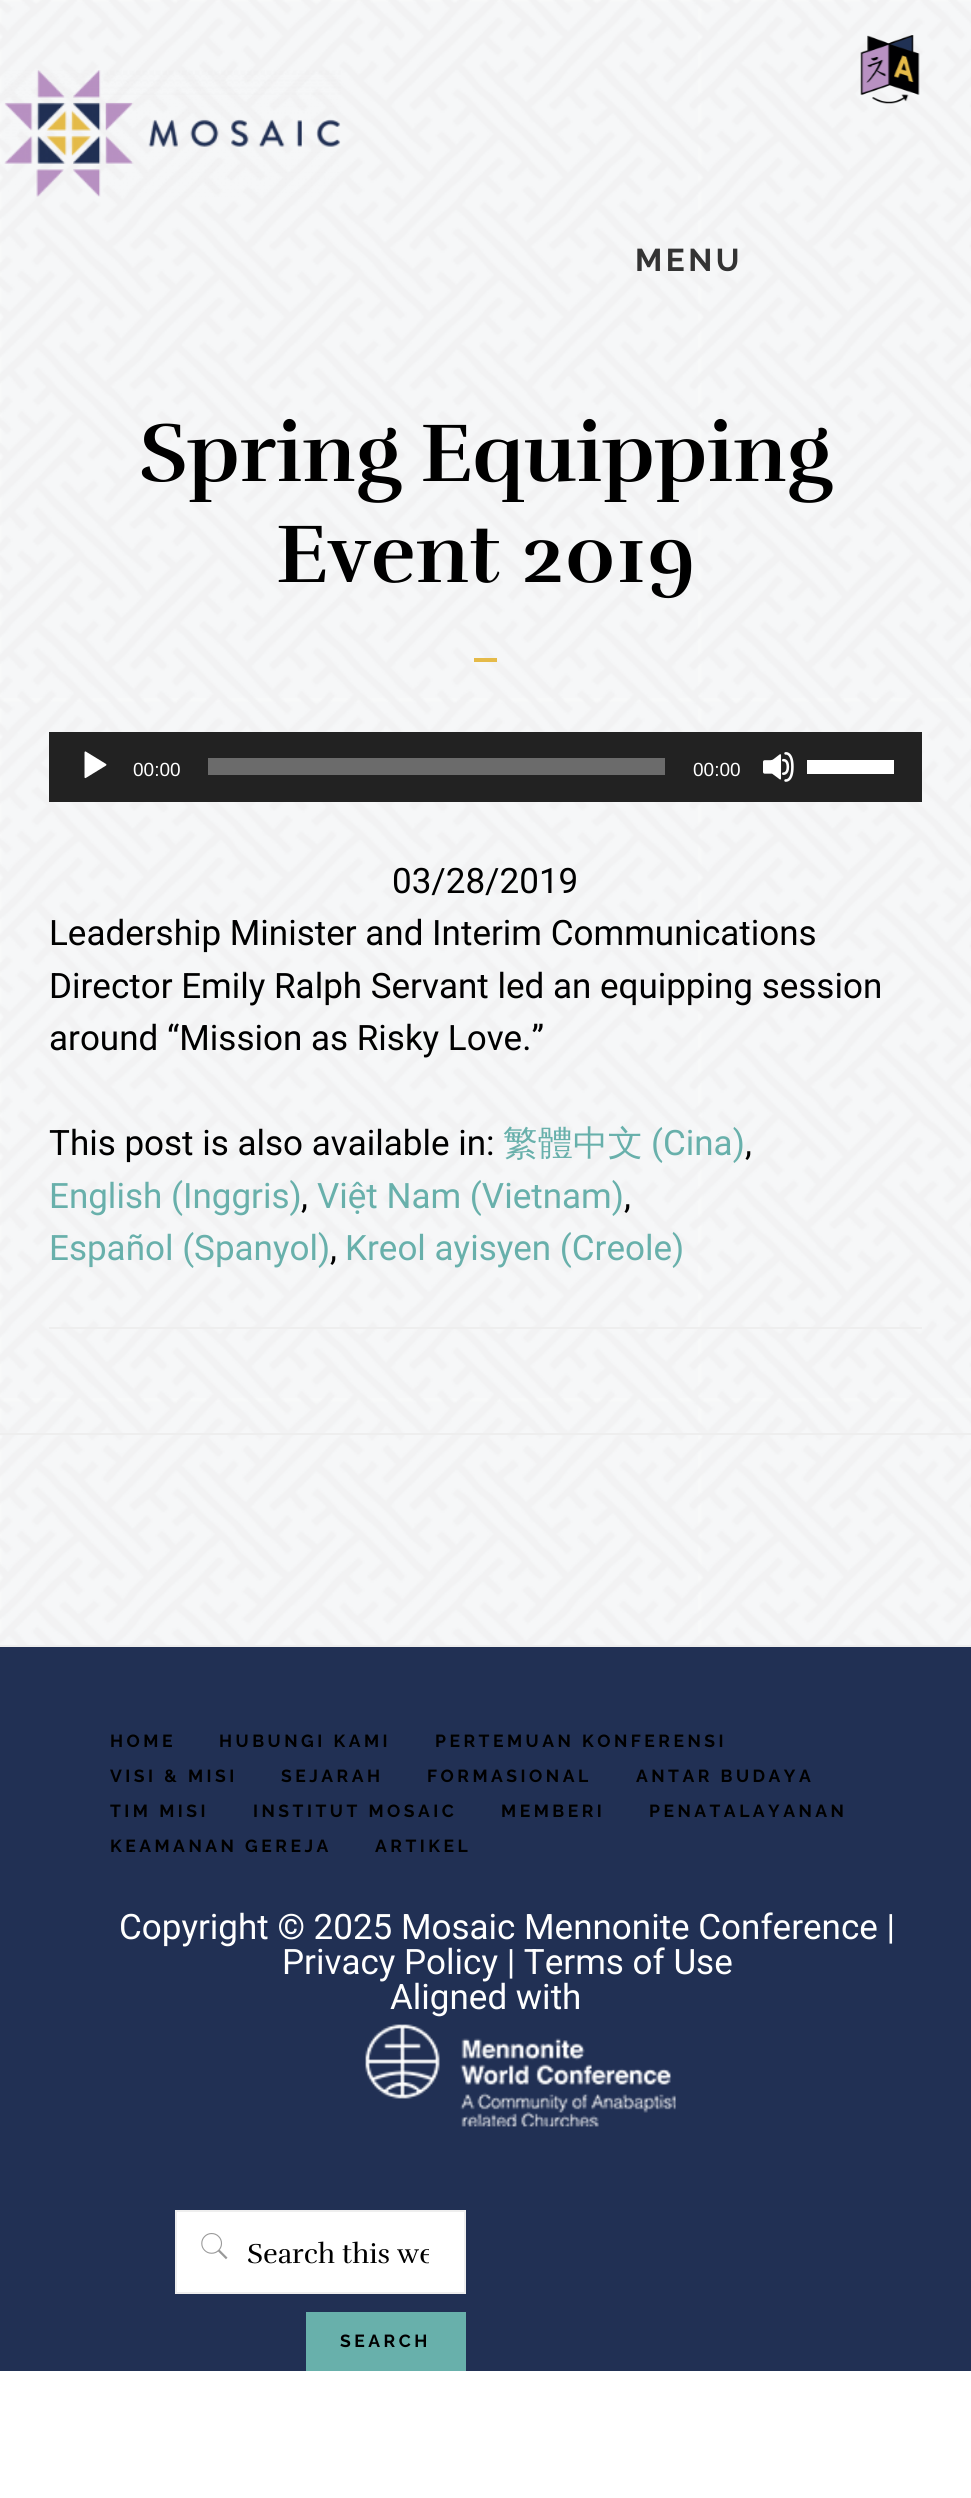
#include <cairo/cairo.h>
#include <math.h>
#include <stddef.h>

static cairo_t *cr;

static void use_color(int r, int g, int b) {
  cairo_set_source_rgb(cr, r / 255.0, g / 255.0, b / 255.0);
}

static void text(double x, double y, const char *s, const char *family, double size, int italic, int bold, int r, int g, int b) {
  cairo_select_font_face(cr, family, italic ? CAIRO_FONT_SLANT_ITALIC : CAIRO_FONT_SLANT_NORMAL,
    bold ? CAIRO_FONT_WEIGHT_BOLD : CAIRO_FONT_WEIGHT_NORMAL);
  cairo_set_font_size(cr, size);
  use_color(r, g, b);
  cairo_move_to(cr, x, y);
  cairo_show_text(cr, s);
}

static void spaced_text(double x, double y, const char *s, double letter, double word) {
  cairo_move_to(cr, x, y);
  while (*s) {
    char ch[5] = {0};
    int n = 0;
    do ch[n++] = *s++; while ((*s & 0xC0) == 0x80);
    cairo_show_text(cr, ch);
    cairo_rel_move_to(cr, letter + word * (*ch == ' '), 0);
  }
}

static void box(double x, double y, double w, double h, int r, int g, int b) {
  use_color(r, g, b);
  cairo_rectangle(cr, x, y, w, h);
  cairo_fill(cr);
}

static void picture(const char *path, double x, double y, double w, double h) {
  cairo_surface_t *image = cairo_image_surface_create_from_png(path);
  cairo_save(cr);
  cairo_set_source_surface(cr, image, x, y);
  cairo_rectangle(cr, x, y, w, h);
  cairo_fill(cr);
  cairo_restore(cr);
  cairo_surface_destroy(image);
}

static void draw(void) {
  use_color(255, 255, 255);
  cairo_paint(cr);
  picture("img_01.png", 0, 0, 971, 1645);
  picture("img_02.png", 860, 35, 60, 69);
  picture("img_03.png", 4, 70, 337, 127);
  box(49, 1327, 873, 2, 238, 238, 238);
  box(474, 658, 23, 4, 229, 186, 72);
  box(49, 732, 873, 70, 34, 34, 34);
  picture("img_04.png", 84, 751, 23, 28);
  box(208, 758, 457, 17, 107, 107, 107);
  picture("img_05.png", 763, 752, 31, 30);
  box(807, 760, 87, 14, 255, 255, 255);
  box(0, 1433, 971, 2, 238, 238, 238);
  box(0, 1647, 971, 724, 33, 48, 84);
  box(0, 1645, 971, 2, 238, 238, 238);
  picture("img_06.png", 365, 2024, 311, 103);
  use_color(255, 255, 255);
  cairo_rectangle(cr, 176, 2211, 289, 82);
  cairo_fill_preserve(cr);
  use_color(238, 238, 238);
  cairo_stroke(cr);
  picture("img_07.png", 201, 2233, 27, 27);
  box(306, 2312, 160, 59, 104, 176, 171);
  cairo_select_font_face(cr, "Raleway", CAIRO_FONT_SLANT_NORMAL, CAIRO_FONT_WEIGHT_BOLD);
  cairo_set_font_size(cr, 31.5);
  use_color(51, 51, 51);
  spaced_text(635, 271, "MENU", 3.5, 0);
  text(139, 481, "Spring Equipping", "Rufina", 84, 0, 1, 0, 0, 0);
  text(276, 582, "Event 2019", "Rufina", 84, 0, 1, 0, 0, 0);
  text(133, 776, "00:00", "Liberation Sans", 19, 0, 0, 255, 255, 255);
  text(693, 776, "00:00", "Liberation Sans", 19, 0, 0, 255, 255, 255);
  text(392, 893, "03/28/2019", "Roboto", 35, 0, 0, 0, 0, 0);
  text(49, 945, "Leadership Minister and Interim Communications", "Roboto", 35, 0, 0, 0, 0, 0);
  text(49, 998, "Director Emily Ralph Servant led an equipping session", "Roboto", 35, 0, 0, 0, 0, 0);
  text(49, 1050, "around “Mission as Risky Love.”", "Roboto", 35, 0, 0, 0, 0, 0);
  text(49, 1155, "This post is also available in:", "Roboto", 35, 0, 0, 0, 0, 0);
  text(503, 1155, "繁體中文", "WenQuanYi Zen Hei Medium", 35, 0, 0, 104, 176, 171);
  text(651, 1155, "(Cina)", "Roboto", 35, 0, 0, 104, 176, 171);
  text(745, 1155, ",", "Roboto", 35, 0, 0, 0, 0, 0);
  text(49, 1208, "English (Inggris)", "Roboto", 35, 0, 0, 104, 176, 171);
  text(301, 1208, ",", "Roboto", 35, 0, 0, 0, 0, 0);
  text(317, 1208, "Việt Nam (Vietnam)", "Roboto", 35, 0, 0, 104, 176, 171);
  text(624, 1208, ",", "Roboto", 35, 0, 0, 0, 0, 0);
  text(49, 1260, "Español (Spanyol)", "Roboto", 35, 0, 0, 104, 176, 171);
  text(330, 1260, ",", "Roboto", 35, 0, 0, 0, 0, 0);
  text(345, 1260, "Kreol ayisyen (Creole)", "Roboto", 35, 0, 0, 104, 176, 171);
  cairo_select_font_face(cr, "Raleway", CAIRO_FONT_SLANT_NORMAL, CAIRO_FONT_WEIGHT_BOLD);
  cairo_set_font_size(cr, 17.5);
  use_color(0, 0, 0);
  spaced_text(110, 1747, "HOME", 3.5, 0);
  spaced_text(219, 1747, "HUBUNGI KAMI", 3.5, 0);
  spaced_text(435, 1747, "PERTEMUAN KONFERENSI", 3.5, 0);
  spaced_text(110, 1782, "VISI & MISI", 3.5, 0);
  spaced_text(281, 1782, "SEJARAH", 3.5, 0);
  spaced_text(427, 1782, "FORMASIONAL", 3.5, 0);
  spaced_text(636, 1782, "ANTAR BUDAYA", 3.5, 0);
  spaced_text(110, 1817, "TIM MISI", 3.5, 0);
  spaced_text(253, 1817, "INSTITUT MOSAIC", 3.5, 0);
  spaced_text(501, 1817, "MEMBERI", 3.5, 0);
  spaced_text(649, 1817, "PENATALAYANAN", 3.5, 0);
  spaced_text(110, 1852, "KEAMANAN GEREJA", 3.5, 0);
  spaced_text(375, 1852, "ARTIKEL", 3.5, 0);
  text(119, 1939, "Copyright © 2025 Mosaic Mennonite Conference |", "Roboto", 35, 0, 0, 255, 255, 255);
  text(282, 1974, "Privacy Policy | Terms of Use", "Roboto", 35, 0, 0, 255, 255, 255);
  text(390, 2009, "Aligned with", "Roboto", 35, 0, 0, 255, 255, 255);
  cairo_save(cr);
  cairo_rectangle(cr, 247, 2237, 182, 35);
  cairo_clip(cr);
  text(247, 2263, "Search this we", "Rufina", 28, 0, 0, 0, 0, 0);
  cairo_restore(cr);
  cairo_select_font_face(cr, "Raleway", CAIRO_FONT_SLANT_NORMAL, CAIRO_FONT_WEIGHT_BOLD);
  cairo_set_font_size(cr, 17.5);
  use_color(0, 0, 0);
  spaced_text(340, 2347, "SEARCH", 3.5, 0);
}

int main(void) {
  cairo_surface_t *surface = cairo_image_surface_create(CAIRO_FORMAT_RGB24, 971, 2498);
  cr = cairo_create(surface);
  cairo_font_options_t *options = cairo_font_options_create();
  cairo_font_options_set_hint_metrics(options, CAIRO_HINT_METRICS_OFF);
  cairo_font_options_set_hint_style(options, CAIRO_HINT_STYLE_NONE);
  cairo_set_font_options(cr, options);
  cairo_set_miter_limit(cr, 4);
  draw();
  cairo_surface_write_to_png(surface, "out.png");
  cairo_font_options_destroy(options);
  cairo_destroy(cr);
  cairo_surface_destroy(surface);
  return 0;
}
